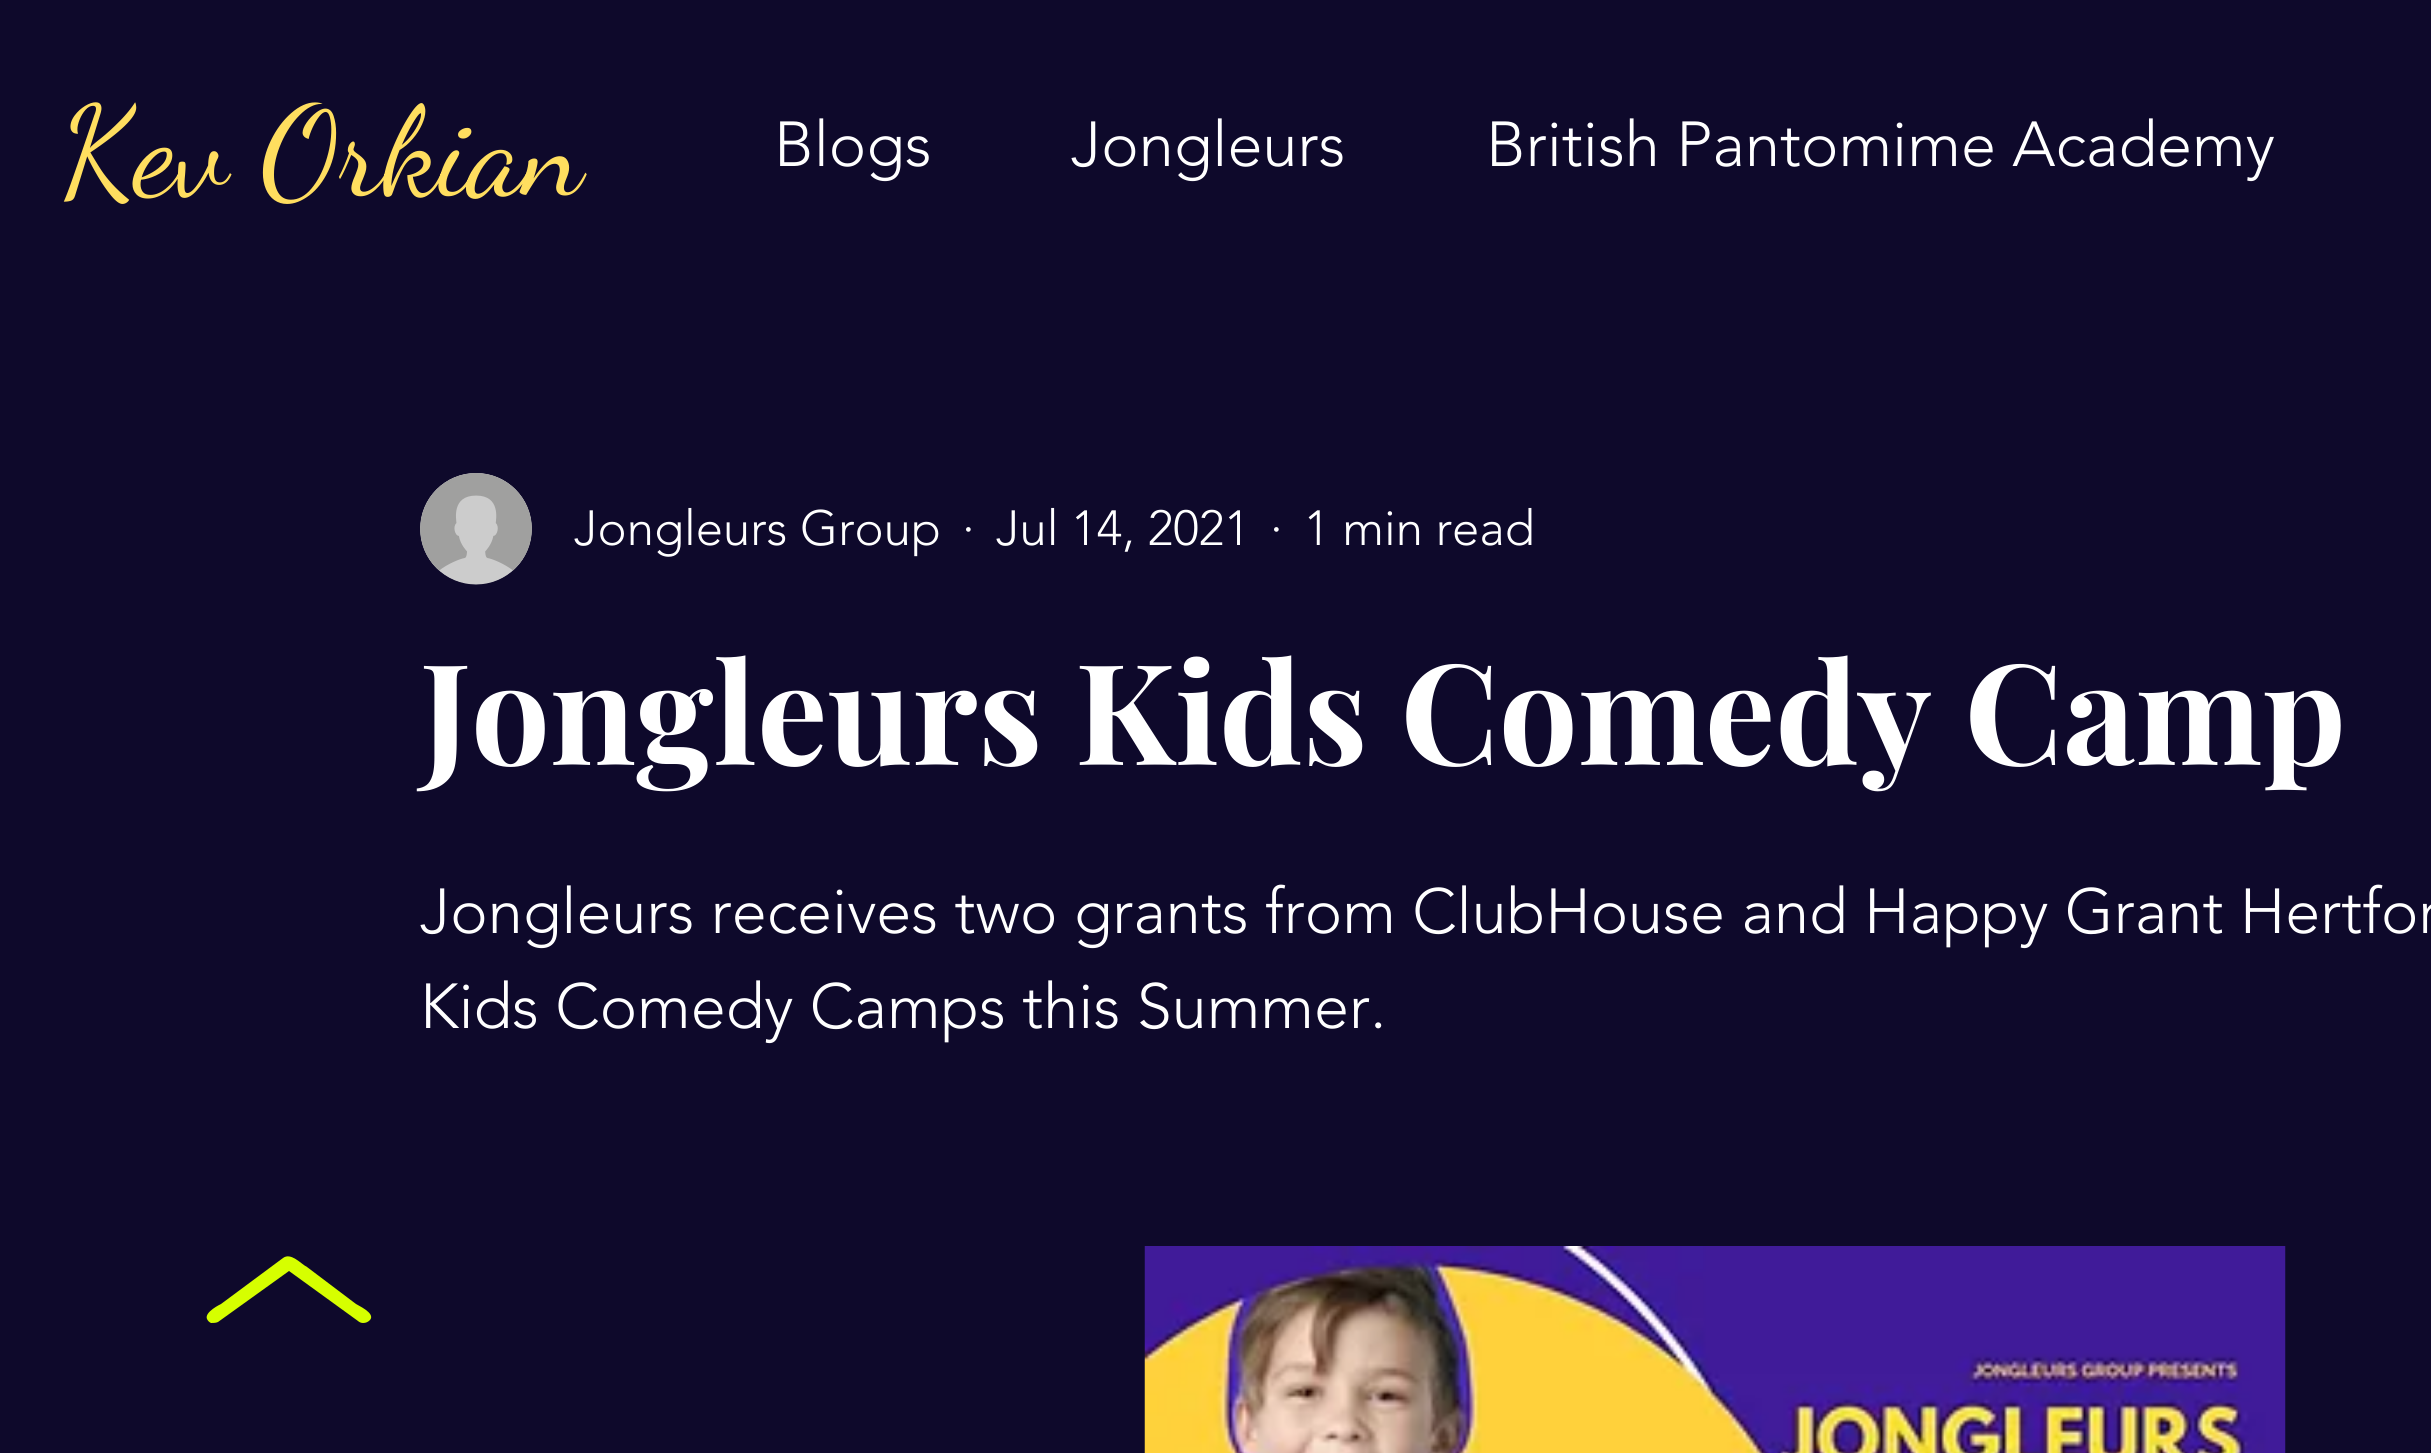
#include <cairo/cairo.h>
#include <math.h>
#include <stddef.h>

static cairo_t *cr;

static void use_color(int r, int g, int b) {
  cairo_set_source_rgb(cr, r / 255.0, g / 255.0, b / 255.0);
}

static void text(double x, double y, const char *s, const char *family, double size, int italic, int bold, int r, int g, int b) {
  cairo_select_font_face(cr, family, italic ? CAIRO_FONT_SLANT_ITALIC : CAIRO_FONT_SLANT_NORMAL,
    bold ? CAIRO_FONT_WEIGHT_BOLD : CAIRO_FONT_WEIGHT_NORMAL);
  cairo_set_font_size(cr, size);
  use_color(r, g, b);
  cairo_move_to(cr, x, y);
  cairo_show_text(cr, s);
}

static void picture(const char *path, double x, double y, double w, double h) {
  cairo_surface_t *image = cairo_image_surface_create_from_png(path);
  cairo_save(cr);
  cairo_set_source_surface(cr, image, x, y);
  cairo_rectangle(cr, x, y, w, h);
  cairo_fill(cr);
  cairo_restore(cr);
  cairo_surface_destroy(image);
}

static void draw(void) {
  use_color(14, 9, 43);
  cairo_paint(cr);
  picture("img_01.png", 420, 473, 112, 112);
  picture("img_02.png", 1144, 1246, 1142, 207);
  use_color(214, 255, 0);
  cairo_new_path(cr);
  cairo_move_to(cr, 363, 1323);
  cairo_curve_to(cr, 361, 1323, 359, 1322, 358, 1321);
  cairo_line_to(cr, 289, 1271);
  cairo_line_to(cr, 218, 1322);
  cairo_curve_to(cr, 216, 1323, 213, 1323, 211, 1323);
  cairo_curve_to(cr, 209, 1322, 208, 1321, 207, 1319);
  cairo_curve_to(cr, 204, 1312, 221, 1304, 221, 1304);
  cairo_line_to(cr, 283, 1258);
  cairo_curve_to(cr, 291, 1252, 301, 1264, 307, 1267);
  cairo_line_to(cr, 356, 1304);
  cairo_curve_to(cr, 357, 1305, 376, 1313, 370, 1320);
  cairo_curve_to(cr, 368, 1322, 366, 1323, 363, 1323);
  cairo_close_path(cr);
  cairo_fill(cr);
  text(60, 193, "Kev Orkian", "Dancing Script", 126, 0, 0, 255, 222, 95);
  text(774, 166, "Blogs", "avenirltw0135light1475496 Light", 63, 0, 0, 255, 255, 255);
  text(1071, 166, "Jongleurs", "avenirltw0135light1475496 Light", 63, 0, 0, 255, 255, 255);
  text(1486, 166, "British Pantomime Academy", "avenirltw0135light1475496 Light", 63, 0, 0, 255, 255, 255);
  text(574, 545, "Jongleurs Group", "avenirltw0135light1475496 Light", 49, 0, 0, 255, 255, 255);
  text(962, 545, "·", "avenirltw0135light1475496 Light", 49, 0, 0, 255, 255, 255);
  text(996, 545, "Jul 14, 2021", "avenirltw0135light1475496 Light", 49, 0, 0, 255, 255, 255);
  text(1270, 545, "·", "avenirltw0135light1475496 Light", 49, 0, 0, 255, 255, 255);
  text(1304, 545, "1 min read", "avenirltw0135light1475496 Light", 49, 0, 0, 255, 255, 255);
  text(420, 765, "Jongleurs Kids Comedy Camp", "Playfair Display", 140, 0, 1, 255, 255, 255);
  text(420, 933, "Jongleurs receives two grants from ClubHouse and Happy Grant Hertfor", "avenirltw0135light1475496 Light", 63, 0, 0, 255, 255, 255);
  text(420, 1028, "Kids Comedy Camps this Summer.", "avenirltw0135light1475496 Light", 63, 0, 0, 255, 255, 255);
}

int main(void) {
  cairo_surface_t *surface = cairo_image_surface_create(CAIRO_FORMAT_RGB24, 2431, 1453);
  cr = cairo_create(surface);
  cairo_font_options_t *options = cairo_font_options_create();
  cairo_font_options_set_hint_metrics(options, CAIRO_HINT_METRICS_OFF);
  cairo_font_options_set_hint_style(options, CAIRO_HINT_STYLE_NONE);
  cairo_set_font_options(cr, options);
  cairo_set_miter_limit(cr, 4);
  draw();
  cairo_surface_write_to_png(surface, "out.png");
  cairo_font_options_destroy(options);
  cairo_destroy(cr);
  cairo_surface_destroy(surface);
  return 0;
}
